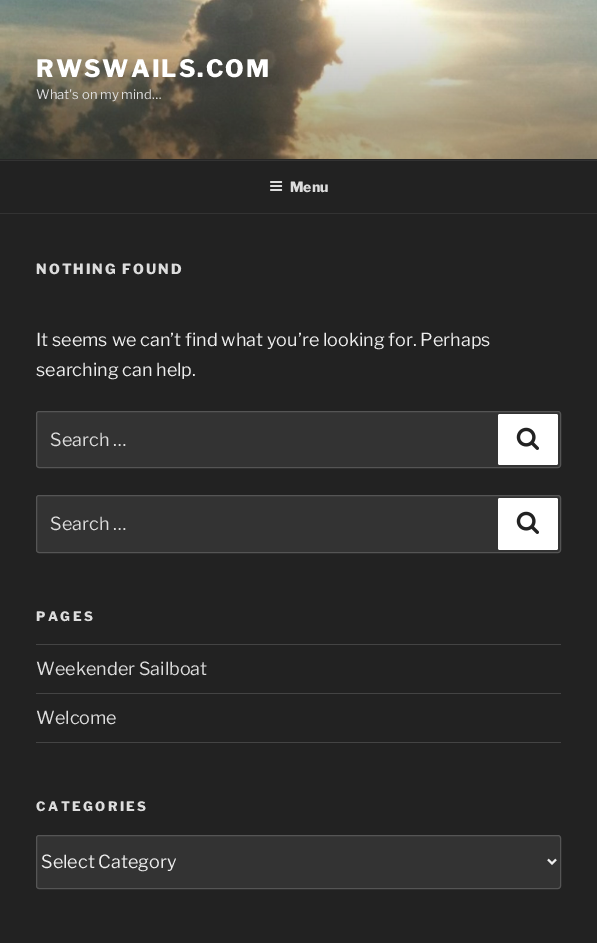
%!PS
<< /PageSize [597 943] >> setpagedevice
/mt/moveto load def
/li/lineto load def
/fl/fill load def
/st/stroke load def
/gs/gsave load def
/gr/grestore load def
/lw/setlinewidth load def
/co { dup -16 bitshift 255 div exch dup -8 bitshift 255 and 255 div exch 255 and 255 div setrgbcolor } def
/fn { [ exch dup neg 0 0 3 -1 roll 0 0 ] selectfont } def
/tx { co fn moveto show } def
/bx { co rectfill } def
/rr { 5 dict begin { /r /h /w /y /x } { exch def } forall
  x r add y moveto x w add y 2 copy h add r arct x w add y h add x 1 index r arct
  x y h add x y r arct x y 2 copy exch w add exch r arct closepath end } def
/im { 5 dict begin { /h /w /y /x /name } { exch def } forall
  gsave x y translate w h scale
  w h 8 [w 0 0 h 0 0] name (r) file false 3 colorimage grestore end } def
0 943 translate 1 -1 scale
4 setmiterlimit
0 0 597 943 16#222222 bx
0 159 597 1 16#262626 bx
(media/1.raw) 0 0 597 159 im
0 160 597 1 16#333333 bx
0 213 597 1 16#333333 bx
(media/2.raw) 270 181 13 10 im
36.5 411.5 524 56 2.5 rr gs fl gr
16#555555 co
st
16#FFFFFF co
498 414 60 51 2 rr fl
(media/3.raw) 516 427 23 23 im
16#333333 co
36.5 495.5 524 57 2.5 rr gs fl gr
16#555555 co
st
16#FFFFFF co
498 498 60 52 2 rr fl
(media/3.raw) 516 511 23 23 im
36 644 525 1 16#444444 bx
36 693 525 1 16#444444 bx
36 742 525 1 16#444444 bx
16#333333 co
36.5 835.5 524 53 2.5 rr gs fl gr
16#555555 co
st
16#EEEEEE co
2 lw
548 859.5 mt 552 863.5 li 556 859.5 li st
/LibreFranklin-ExtraBold 24 fn
16#FFFFFF co
36 77 mt 2 0 (RWSWAILS.COM) ashow
(What's on my mind…) 36 99 /LibreFranklin-Regular 13 16#DDDDDD tx
(Menu) 290 192 /LibreFranklin-ExtraBold 14 16#DDDDDD tx
36 274 mt 2 0 (NOTHING FOUND) ashow
(It seems we can’t find what you’re looking for. Perhaps) 36 346 /LibreFranklin-Regular 18 16#EEEEEE tx
(searching can help.) 36 376 /LibreFranklin-Regular 18 16#EEEEEE tx
(Search …) 50 446 /LibreFranklin-Regular 18 16#DDDDDD tx
(Search …) 50 530 /LibreFranklin-Regular 18 16#DDDDDD tx
/LibreFranklin-ExtraBold 13 fn
36 621 mt 2.4 0 (PAGES) ashow
(Weekender Sailboat) 36 675 /LibreFranklin-Regular 18 16#DDDDDD tx
(Welcome) 36 724 /LibreFranklin-Regular 18 16#DDDDDD tx
/LibreFranklin-ExtraBold 13 fn
36 811 mt 2.4 0 (CATEGORIES) ashow
(Select Category) 41 868 /LibreFranklin-Regular 18 16#EEEEEE tx
showpage
